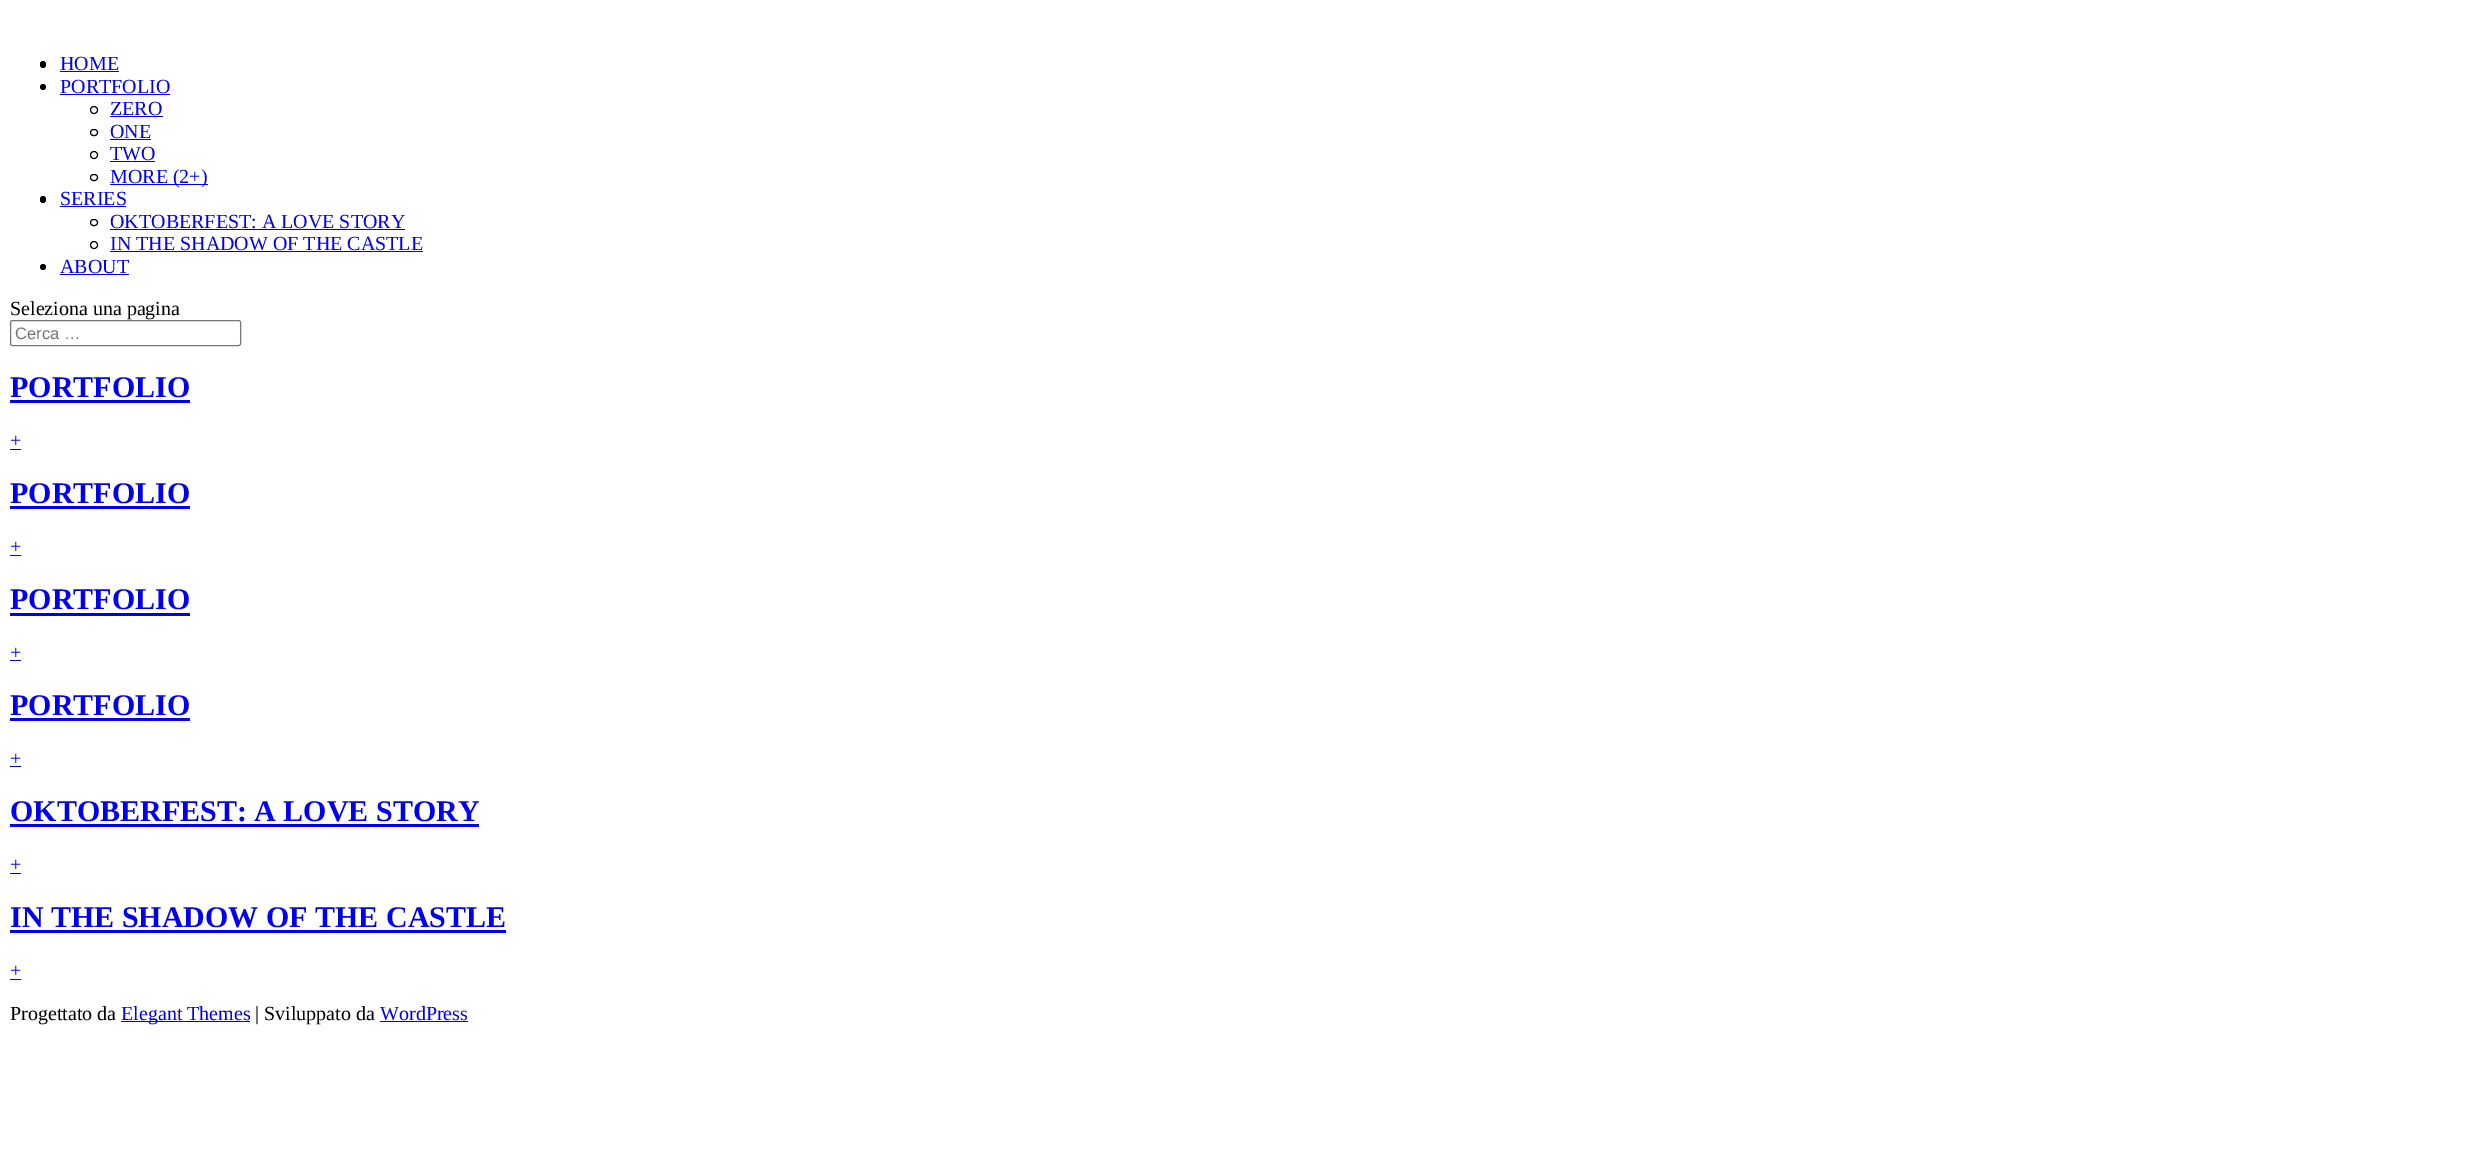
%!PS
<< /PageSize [2489 1157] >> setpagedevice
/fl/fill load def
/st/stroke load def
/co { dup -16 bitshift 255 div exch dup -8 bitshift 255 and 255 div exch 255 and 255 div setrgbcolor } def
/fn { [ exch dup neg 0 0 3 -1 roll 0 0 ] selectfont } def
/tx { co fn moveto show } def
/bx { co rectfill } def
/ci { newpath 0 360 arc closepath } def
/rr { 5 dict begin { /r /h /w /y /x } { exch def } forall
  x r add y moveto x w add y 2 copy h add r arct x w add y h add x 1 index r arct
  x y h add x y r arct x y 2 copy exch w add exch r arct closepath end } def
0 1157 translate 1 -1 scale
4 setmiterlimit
0 0 2489 1157 16#FFFFFF bx
16#000000 co
40 61 6 7 3 rr fl
60 71 59 1 16#0000EE bx
16#000000 co
43 87 3 ci fl
60 94 110 1 16#0000EE bx
16#000000 co
94 110 3.5 ci st
110 116 53 1 16#0000EE bx
16#000000 co
90.5 129.5 7 6 3 rr st
110 139 41 1 16#0000EE bx
16#000000 co
94 155 3.5 ci st
110 161 45 1 16#0000EE bx
16#000000 co
90.5 174.5 7 6 3 rr st
110 184 98 1 16#0000EE bx
16#000000 co
40 196 6 7 3 rr fl
60 206 66 1 16#0000EE bx
16#000000 co
90.5 219.5 7 6 3 rr st
110 229 295 1 16#0000EE bx
16#000000 co
94 245 3.5 ci st
110 251 313 1 16#0000EE bx
16#000000 co
43 267 3 ci fl
60 274 69 1 16#0000EE bx
16#767676 co
10.5 320.5 230 25 2 rr st
10 400 180 3 16#0000EE bx
10 449 11 1 16#0000EE bx
10 506 180 3 16#0000EE bx
10 555 11 1 16#0000EE bx
10 613 180 3 16#0000EE bx
10 660 11 1 16#0000EE bx
10 718 180 3 16#0000EE bx
10 766 11 1 16#0000EE bx
10 824 469 3 16#0000EE bx
10 873 11 1 16#0000EE bx
10 930 496 3 16#0000EE bx
10 979 11 1 16#0000EE bx
121 1021 129 1 16#0000EE bx
380 1021 88 1 16#0000EE bx
(HOME) 60 70 /LiberationSerif-Regular 20 16#0000EE tx
(PORTFOLIO) 60 93 /LiberationSerif-Regular 20 16#0000EE tx
(ZERO) 110 115 /LiberationSerif-Regular 20 16#0000EE tx
(ONE) 110 138 /LiberationSerif-Regular 20 16#0000EE tx
(TWO) 110 160 /LiberationSerif-Regular 20 16#0000EE tx
(MORE \(2+\)) 110 183 /LiberationSerif-Regular 20 16#0000EE tx
(SERIES) 60 205 /LiberationSerif-Regular 20 16#0000EE tx
(OKTOBERFEST: A LOVE STORY) 110 228 /LiberationSerif-Regular 20 16#0000EE tx
(IN THE SHADOW OF THE CASTLE) 110 250 /LiberationSerif-Regular 20 16#0000EE tx
(ABOUT) 60 273 /LiberationSerif-Regular 20 16#0000EE tx
(Seleziona una pagina) 10 315 /LiberationSerif-Regular 20 16#000000 tx
(Cerca …) 15 339 /LiberationSans-Regular 16.5 16#757575 tx
(PORTFOLIO) 10 397 /LiberationSerif-Bold 30 16#0000EE tx
(+) 10 447 /LiberationSerif-Regular 20 16#0000EE tx
(PORTFOLIO) 10 503 /LiberationSerif-Bold 30 16#0000EE tx
(+) 10 553 /LiberationSerif-Regular 20 16#0000EE tx
(PORTFOLIO) 10 609 /LiberationSerif-Bold 30 16#0000EE tx
(+) 10 659 /LiberationSerif-Regular 20 16#0000EE tx
(PORTFOLIO) 10 715 /LiberationSerif-Bold 30 16#0000EE tx
(+) 10 765 /LiberationSerif-Regular 20 16#0000EE tx
(OKTOBERFEST: A LOVE STORY) 10 821 /LiberationSerif-Bold 30 16#0000EE tx
(+) 10 871 /LiberationSerif-Regular 20 16#0000EE tx
(IN THE SHADOW OF THE CASTLE) 10 927 /LiberationSerif-Bold 30 16#0000EE tx
(+) 10 977 /LiberationSerif-Regular 20 16#0000EE tx
(Progettato da) 10 1020 /LiberationSerif-Regular 20 16#000000 tx
(Elegant Themes) 121 1020 /LiberationSerif-Regular 20 16#0000EE tx
(| Sviluppato da) 255 1020 /LiberationSerif-Regular 20 16#000000 tx
(WordPress) 380 1020 /LiberationSerif-Regular 20 16#0000EE tx
showpage
